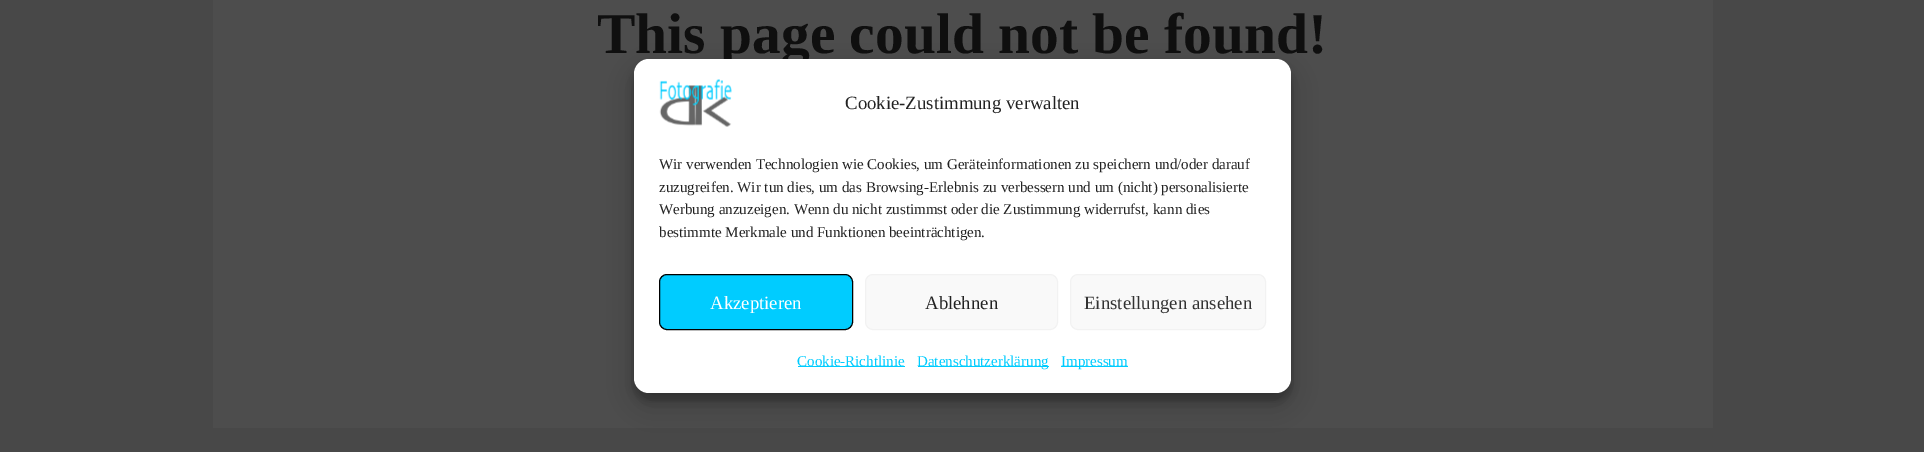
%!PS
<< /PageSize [1924 452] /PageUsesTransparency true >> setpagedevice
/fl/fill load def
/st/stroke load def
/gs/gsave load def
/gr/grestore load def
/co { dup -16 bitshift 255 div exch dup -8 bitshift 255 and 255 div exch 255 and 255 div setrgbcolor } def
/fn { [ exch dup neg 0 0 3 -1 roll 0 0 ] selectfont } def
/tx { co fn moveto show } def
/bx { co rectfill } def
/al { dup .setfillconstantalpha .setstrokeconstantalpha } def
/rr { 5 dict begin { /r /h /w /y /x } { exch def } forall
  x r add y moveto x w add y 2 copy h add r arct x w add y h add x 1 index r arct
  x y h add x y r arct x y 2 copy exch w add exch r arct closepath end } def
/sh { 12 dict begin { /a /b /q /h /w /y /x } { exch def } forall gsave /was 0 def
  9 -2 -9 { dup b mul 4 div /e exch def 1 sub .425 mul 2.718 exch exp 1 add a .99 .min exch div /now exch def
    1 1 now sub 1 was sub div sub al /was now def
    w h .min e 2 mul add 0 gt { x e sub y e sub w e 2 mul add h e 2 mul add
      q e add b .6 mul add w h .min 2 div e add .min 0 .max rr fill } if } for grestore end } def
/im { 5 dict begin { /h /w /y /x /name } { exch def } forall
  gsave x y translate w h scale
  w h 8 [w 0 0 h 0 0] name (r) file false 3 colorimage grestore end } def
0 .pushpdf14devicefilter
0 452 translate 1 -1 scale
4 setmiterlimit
0 0 1924 452 16#484848 bx
213 0 1500 428 16#4D4D4D bx
16#000000 co
634 66 657 334 15 4 .23 sh
634 71 657 334 15 12.5 .19 sh
(This page could not be found!) 597 53 /LiberationSerif-Bold 57.5 16#0F0F0F tx
16#FFFFFF co
634 59 657 334 15 rr fl
(media/1.raw) 659 79 73 48 im
(Cookie-Zustimmung verwalten) 845 109 /LiberationSerif-Regular 18.75 16#222222 tx
(Wir verwenden Technologien wie Cookies, um Geräteinformationen zu speichern und/oder darauf) 659 169 /LiberationSerif-Regular 15 16#222222 tx
(zuzugreifen. Wir tun dies, um das Browsing-Erlebnis zu verbessern und um \(nicht\) personalisierte) 659 192 /LiberationSerif-Regular 15 16#222222 tx
(Werbung anzuzeigen. Wenn du nicht zustimmst oder die Zustimmung widerrufst, kann dies) 659 214 /LiberationSerif-Regular 15 16#222222 tx
(bestimmte Merkmale und Funktionen beeinträchtigen.) 659 237 /LiberationSerif-Regular 15 16#222222 tx
16#00CCFF co
659.5 274.5 193 55 7.5 rr gs fl gr
16#000000 co
st
(Akzeptieren) 710 309 /LiberationSerif-Regular 18.75 16#FFFFFF tx
16#F9F9F9 co
865.5 274.5 192 55 7.5 rr gs fl gr
16#F2F2F2 co
st
(Ablehnen) 925 309 /LiberationSerif-Regular 18.75 16#222222 tx
16#F9F9F9 co
1070.5 274.5 195 55 7.5 rr gs fl gr
16#F2F2F2 co
st
(Einstellungen ansehen) 1084 309 /LiberationSerif-Regular 18.75 16#333333 tx
798 366 107 1 16#00CCFF bx
(Cookie-Richtlinie) 797 366 /LiberationSerif-Regular 15 16#00CCFF tx
918 366 131 1 16#00CCFF bx
(Datenschutzerklärung) 917 366 /LiberationSerif-Regular 15 16#00CCFF tx
1061 366 67 1 16#00CCFF bx
(Impressum) 1061 366 /LiberationSerif-Regular 15 16#00CCFF tx
.poppdf14devicefilter showpage
